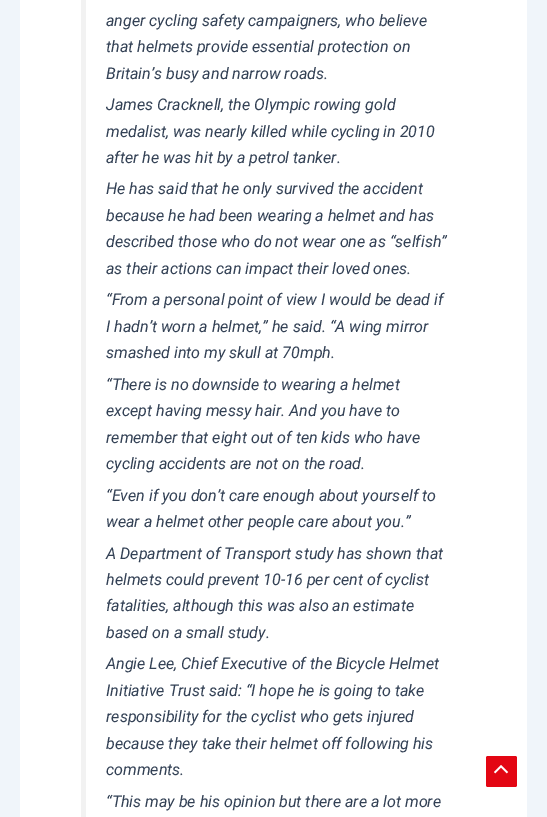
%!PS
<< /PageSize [547 817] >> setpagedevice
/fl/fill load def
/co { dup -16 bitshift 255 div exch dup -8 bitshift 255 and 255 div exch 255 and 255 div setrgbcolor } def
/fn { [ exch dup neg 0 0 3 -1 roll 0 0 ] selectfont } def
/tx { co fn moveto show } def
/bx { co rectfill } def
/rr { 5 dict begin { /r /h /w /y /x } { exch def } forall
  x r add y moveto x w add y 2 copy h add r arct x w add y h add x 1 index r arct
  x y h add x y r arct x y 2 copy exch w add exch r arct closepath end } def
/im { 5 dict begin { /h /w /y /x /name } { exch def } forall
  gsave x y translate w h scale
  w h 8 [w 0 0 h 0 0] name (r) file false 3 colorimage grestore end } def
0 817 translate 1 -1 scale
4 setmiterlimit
0 0 547 817 16#F0F5FA bx
20 0 507 817 16#FFFFFF bx
81 0 5 817 16#F2F2F2 bx
16#E30613 co
486 756 31 31 2 rr fl
(media/1.raw) 494 765 15 9 im
(anger cycling safety campaigners, who believe) 106 26 /Roboto-Italic 16.05 16#334155 tx
(that helmets provide essential protection on) 106 52 /Roboto-Italic 16.05 16#334155 tx
(Britain’s busy and narrow roads.) 106 79 /Roboto-Italic 16.05 16#334155 tx
(James Cracknell, the Olympic rowing gold) 106 110 /Roboto-Italic 16.05 16#334155 tx
(medalist, was nearly killed while cycling in 2010) 106 137 /Roboto-Italic 16.05 16#334155 tx
(after he was hit by a petrol tanker.) 106 163 /Roboto-Italic 16.05 16#334155 tx
(He has said that he only survived the accident) 106 194 /Roboto-Italic 16.05 16#334155 tx
(because he had been wearing a helmet and has) 106 221 /Roboto-Italic 16.05 16#334155 tx
(described those who do not wear one as “selfish”) 106 247 /Roboto-Italic 16.05 16#334155 tx
(as their actions can impact their loved ones.) 106 274 /Roboto-Italic 16.05 16#334155 tx
(“From a personal point of view I would be dead if) 106 305 /Roboto-Italic 16.05 16#334155 tx
(I hadn’t worn a helmet,” he said. “A wing mirror) 106 332 /Roboto-Italic 16.05 16#334155 tx
(smashed into my skull at 70mph.) 106 358 /Roboto-Italic 16.05 16#334155 tx
(“There is no downside to wearing a helmet) 106 390 /Roboto-Italic 16.05 16#334155 tx
(except having messy hair. And you have to) 106 416 /Roboto-Italic 16.05 16#334155 tx
(remember that eight out of ten kids who have) 106 443 /Roboto-Italic 16.05 16#334155 tx
(cycling accidents are not on the road.) 106 469 /Roboto-Italic 16.05 16#334155 tx
(“Even if you don’t care enough about yourself to) 106 501 /Roboto-Italic 16.05 16#334155 tx
(wear a helmet other people care about you.”) 106 527 /Roboto-Italic 16.05 16#334155 tx
(A Department of Transport study has shown that) 106 559 /Roboto-Italic 16.05 16#334155 tx
(helmets could prevent 10-16 per cent of cyclist) 106 585 /Roboto-Italic 16.05 16#334155 tx
(fatalities, although this was also an estimate) 106 611 /Roboto-Italic 16.05 16#334155 tx
(based on a small study.) 106 638 /Roboto-Italic 16.05 16#334155 tx
(Angie Lee, Chief Executive of the Bicycle Helmet) 106 669 /Roboto-Italic 16.05 16#334155 tx
(Initiative Trust said: “I hope he is going to take) 106 696 /Roboto-Italic 16.05 16#334155 tx
(responsibility for the cyclist who gets injured) 106 722 /Roboto-Italic 16.05 16#334155 tx
(because they take their helmet off following his) 106 749 /Roboto-Italic 16.05 16#334155 tx
(comments.) 106 775 /Roboto-Italic 16.05 16#334155 tx
(“This may be his opinion but there are a lot more) 106 807 /Roboto-Italic 16.05 16#334155 tx
showpage
